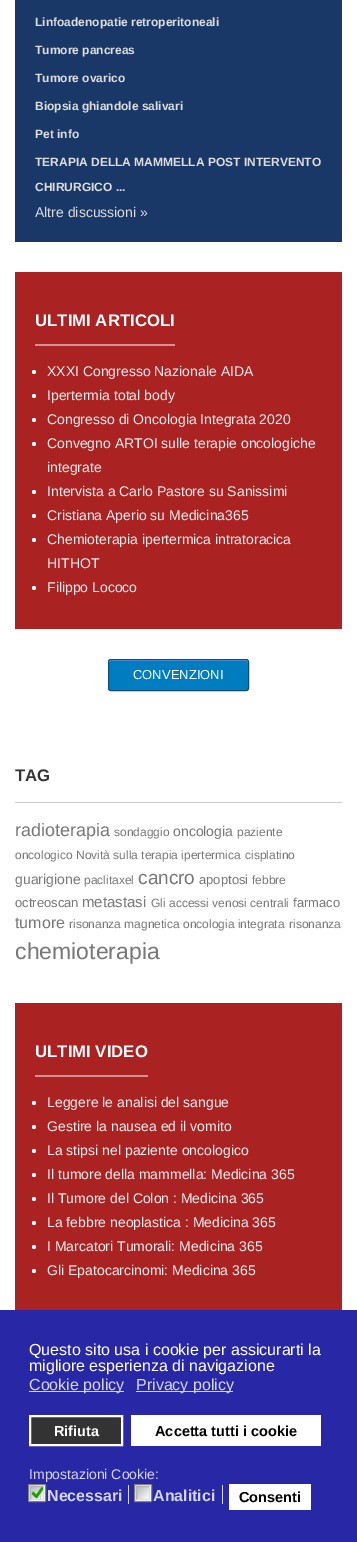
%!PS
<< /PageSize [357 1542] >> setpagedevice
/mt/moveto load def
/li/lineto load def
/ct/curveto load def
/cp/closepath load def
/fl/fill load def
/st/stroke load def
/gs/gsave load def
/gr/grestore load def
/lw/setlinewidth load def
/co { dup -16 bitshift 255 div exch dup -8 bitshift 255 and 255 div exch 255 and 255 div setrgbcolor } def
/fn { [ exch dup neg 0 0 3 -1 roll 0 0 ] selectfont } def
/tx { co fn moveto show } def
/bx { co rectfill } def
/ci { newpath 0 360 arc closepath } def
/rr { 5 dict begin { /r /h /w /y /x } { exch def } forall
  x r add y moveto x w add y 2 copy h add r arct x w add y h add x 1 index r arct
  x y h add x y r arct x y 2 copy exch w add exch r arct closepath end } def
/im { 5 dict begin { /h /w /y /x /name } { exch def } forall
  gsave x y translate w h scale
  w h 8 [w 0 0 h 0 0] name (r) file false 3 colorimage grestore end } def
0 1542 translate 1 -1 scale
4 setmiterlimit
0 0 357 1542 16#FFFFFF bx
15 0 327 242 16#1A3867 bx
15 272 327 357 16#AA2222 bx
35 344 140 2 16#D59191 bx
16#FFFFFF co
34 372 2 ci fl
34 396 2 ci fl
34 420 2 ci fl
34 444 2 ci fl
34 492 2 ci fl
34 516 2 ci fl
34 540 2 ci fl
34 588 2 ci fl
16#007DC1 co
108 659 141 32 3 rr fl
16#54A3F7 co
111 661 mt 246 661 li 247 661 248 662 248 663 ct 248 662 248 660 246 660 ct 111 660 li 109 660 109 662 109 663 ct 109 662 110 661 111 661 ct cp fl
16#124D77 co
108.5 659.5 140 31 2.5 rr st
15 802 327 1 16#CCCCCC bx
15 1003 327 307 16#AA2222 bx
35 1075 113 2 16#D59191 bx
16#FFFFFF co
34 1103 2 ci fl
34 1127 2 ci fl
34 1151 2 ci fl
34 1175 2 ci fl
34 1199 2 ci fl
34 1223 2 ci fl
34 1247 2 ci fl
34 1271 2 ci fl
0 1310 357 232 16#2828A6 bx
29 1391 95 1 16#D4D4ED bx
136 1391 97 1 16#D4D4ED bx
16#333333 co
30 1416 mt 122 1416 li 122 1445 li 30 1445 li cp gs fl gr
16#FFFFFF co
2 lw
st
131 1415 190 31 16#FFFFFF bx
28.5 1484.5 17 17 .5 rr gs fl gr
16#808080 co
1 lw
st
(media/1.raw) 30 1486 14 14 im
16#DCDDDE co
43.5 1486.5 mt 43.5 1493 li 43.5 1501.5 45.5 1499.5 37 1499.5 ct 30.5 1499.5 li st
16#B3B3B3 co
30.5 1499.5 mt 30.5 1493 li 30.5 1484.5 28.5 1486.5 37 1486.5 ct 43.5 1486.5 li st
128 1485 1 19 16#D4D4ED bx
16#FFFFFF co
134.5 1484.5 17 17 .5 rr gs fl gr
16#808080 co
st
gs 137 1487 mt 149 1487 li 149 1499 li 137 1499 li cp clip newpath
<< /ShadingType 2 /ColorSpace /DeviceRGB /Coords [137 1487 149 1499] /Extend [true true] /Function << /FunctionType 2 /Domain [0 1] /C0 [.694 .714 .745] /C1 [1 1 1] /N 1 >> >> shfill gr
16#DCDDDE co
149.5 1486.5 mt 149.5 1493 li 149.5 1501.5 151.5 1499.5 143 1499.5 ct 136.5 1499.5 li st
16#B3B3B3 co
136.5 1499.5 mt 136.5 1493 li 136.5 1484.5 134.5 1486.5 143 1486.5 ct 149.5 1486.5 li st
222 1485 1 19 16#D4D4ED bx
229 1484 82 26 16#FFFFFF bx
(Linfoadenopatie retroperitoneali) 35 26 /LiberationSans-Bold 12 16#DDDDDD tx
(Tumore pancreas) 35 54 /LiberationSans-Bold 12 16#DDDDDD tx
(Tumore ovarico) 35 82 /LiberationSans-Bold 12 16#DDDDDD tx
(Biopsia ghiandole salivari) 35 110 /LiberationSans-Bold 12 16#DDDDDD tx
(Pet info) 35 138 /LiberationSans-Bold 12 16#DDDDDD tx
(TERAPIA DELLA MAMMELLA POST INTERVENTO) 35 166 /LiberationSans-Bold 12 16#DDDDDD tx
(CHIRURGICO ...) 35 191 /LiberationSans-Bold 12 16#DDDDDD tx
(Altre discussioni ») 35 217 /LiberationSans-Regular 14 16#DDDDDD tx
(ULTIMI ARTICOLI) 35 326 /LiberationSans-Bold 16.75 16#FFFFFF tx
(XXXI Congresso Nazionale AIDA) 47 376 /LiberationSans-Regular 14 16#EEEEEE tx
(Ipertermia total body) 47 400 /LiberationSans-Regular 14 16#EEEEEE tx
(Congresso di Oncologia Integrata 2020) 47 424 /LiberationSans-Regular 14 16#EEEEEE tx
(Convegno ARTOI sulle terapie oncologiche) 47 448 /LiberationSans-Regular 14 16#EEEEEE tx
(integrate) 47 472 /LiberationSans-Regular 14 16#EEEEEE tx
(Intervista a Carlo Pastore su Sanissimi) 47 496 /LiberationSans-Regular 14 16#EEEEEE tx
(Cristiana Aperio su Medicina365) 47 520 /LiberationSans-Regular 14 16#EEEEEE tx
(Chemioterapia ipertermica intratoracica) 47 544 /LiberationSans-Regular 14 16#EEEEEE tx
(HITHOT) 47 568 /LiberationSans-Regular 14 16#EEEEEE tx
(Filippo Lococo) 47 592 /LiberationSans-Regular 14 16#EEEEEE tx
(CONVENZIONI) 133 679 /LiberationSans-Regular 13 16#FFFFFF tx
(TAG) 15 781 /LiberationSans-Bold 16.75 16#333333 tx
(radioterapia) 15 836 /LiberationSans-Regular 18 16#777777 tx
(sondaggio) 114 836 /LiberationSans-Regular 12 16#777777 tx
(oncologia) 173 836 /LiberationSans-Regular 14 16#777777 tx
(paziente) 237 836 /LiberationSans-Regular 12 16#777777 tx
(oncologico) 15 859 /LiberationSans-Regular 12 16#777777 tx
(Novità sulla terapia ipertermica) 76 859 /LiberationSans-Regular 12 16#777777 tx
(cisplatino) 245 859 /LiberationSans-Regular 12 16#777777 tx
(guarigione) 15 884 /LiberationSans-Regular 14 16#777777 tx
(paclitaxel) 84 884 /LiberationSans-Regular 12 16#777777 tx
(cancro) 138 884 /LiberationSans-Regular 19 16#777777 tx
(apoptosi) 199 884 /LiberationSans-Regular 13 16#777777 tx
(febbre) 252 884 /LiberationSans-Regular 12 16#777777 tx
(octreoscan) 15 907 /LiberationSans-Regular 13 16#777777 tx
(metastasi) 82 907 /LiberationSans-Regular 15 16#777777 tx
(Gli accessi venosi centrali) 151 907 /LiberationSans-Regular 12 16#777777 tx
(farmaco) 293 907 /LiberationSans-Regular 13 16#777777 tx
(tumore) 15 928 /LiberationSans-Regular 16 16#777777 tx
(risonanza magnetica) 69 928 /LiberationSans-Regular 12 16#777777 tx
(oncologia integrata) 183 928 /LiberationSans-Regular 12 16#777777 tx
(risonanza) 289 928 /LiberationSans-Regular 12 16#777777 tx
(chemioterapia) 15 959 /LiberationSans-Regular 23 16#777777 tx
(ULTIMI VIDEO) 35 1057 /LiberationSans-Bold 16.75 16#FFFFFF tx
(Leggere le analisi del sangue) 47 1107 /LiberationSans-Regular 14 16#EEEEEE tx
(Gestire la nausea ed il vomito) 47 1131 /LiberationSans-Regular 14 16#EEEEEE tx
(La stipsi nel paziente oncologico) 47 1155 /LiberationSans-Regular 14 16#EEEEEE tx
(Il tumore della mammella: Medicina 365) 47 1179 /LiberationSans-Regular 14 16#EEEEEE tx
(Il Tumore del Colon : Medicina 365) 47 1203 /LiberationSans-Regular 14 16#EEEEEE tx
(La febbre neoplastica : Medicina 365) 47 1227 /LiberationSans-Regular 14 16#EEEEEE tx
(I Marcatori Tumorali: Medicina 365) 47 1251 /LiberationSans-Regular 14 16#EEEEEE tx
(Gli Epatocarcinomi: Medicina 365) 47 1275 /LiberationSans-Regular 14 16#EEEEEE tx
(Questo sito usa i cookie per assicurarti la) 29 1355 /LiberationSans-Regular 16 16#FFFFFF tx
(migliore esperienza di navigazione) 29 1371 /LiberationSans-Regular 16 16#FFFFFF tx
(Cookie policy) 29 1390 /LiberationSans-Regular 16 16#D4D4ED tx
(Privacy policy) 136 1390 /LiberationSans-Regular 16 16#D4D4ED tx
(Rifiuta) 54 1436 /LiberationSans-Bold 14.5 16#FFFFFF tx
(Accetta tutti i cookie) 155 1436 /LiberationSans-Bold 14.5 16#000000 tx
(Impostazioni Cookie:) 29 1479 /LiberationSans-Regular 14 16#D4D4ED tx
(Necessari) 47 1501 /LiberationSans-Bold 16 16#D4D4ED tx
(Analitici) 153 1501 /LiberationSans-Bold 16 16#D4D4ED tx
(Consenti) 239 1502 /LiberationSans-Bold 14.5 16#000000 tx
showpage
